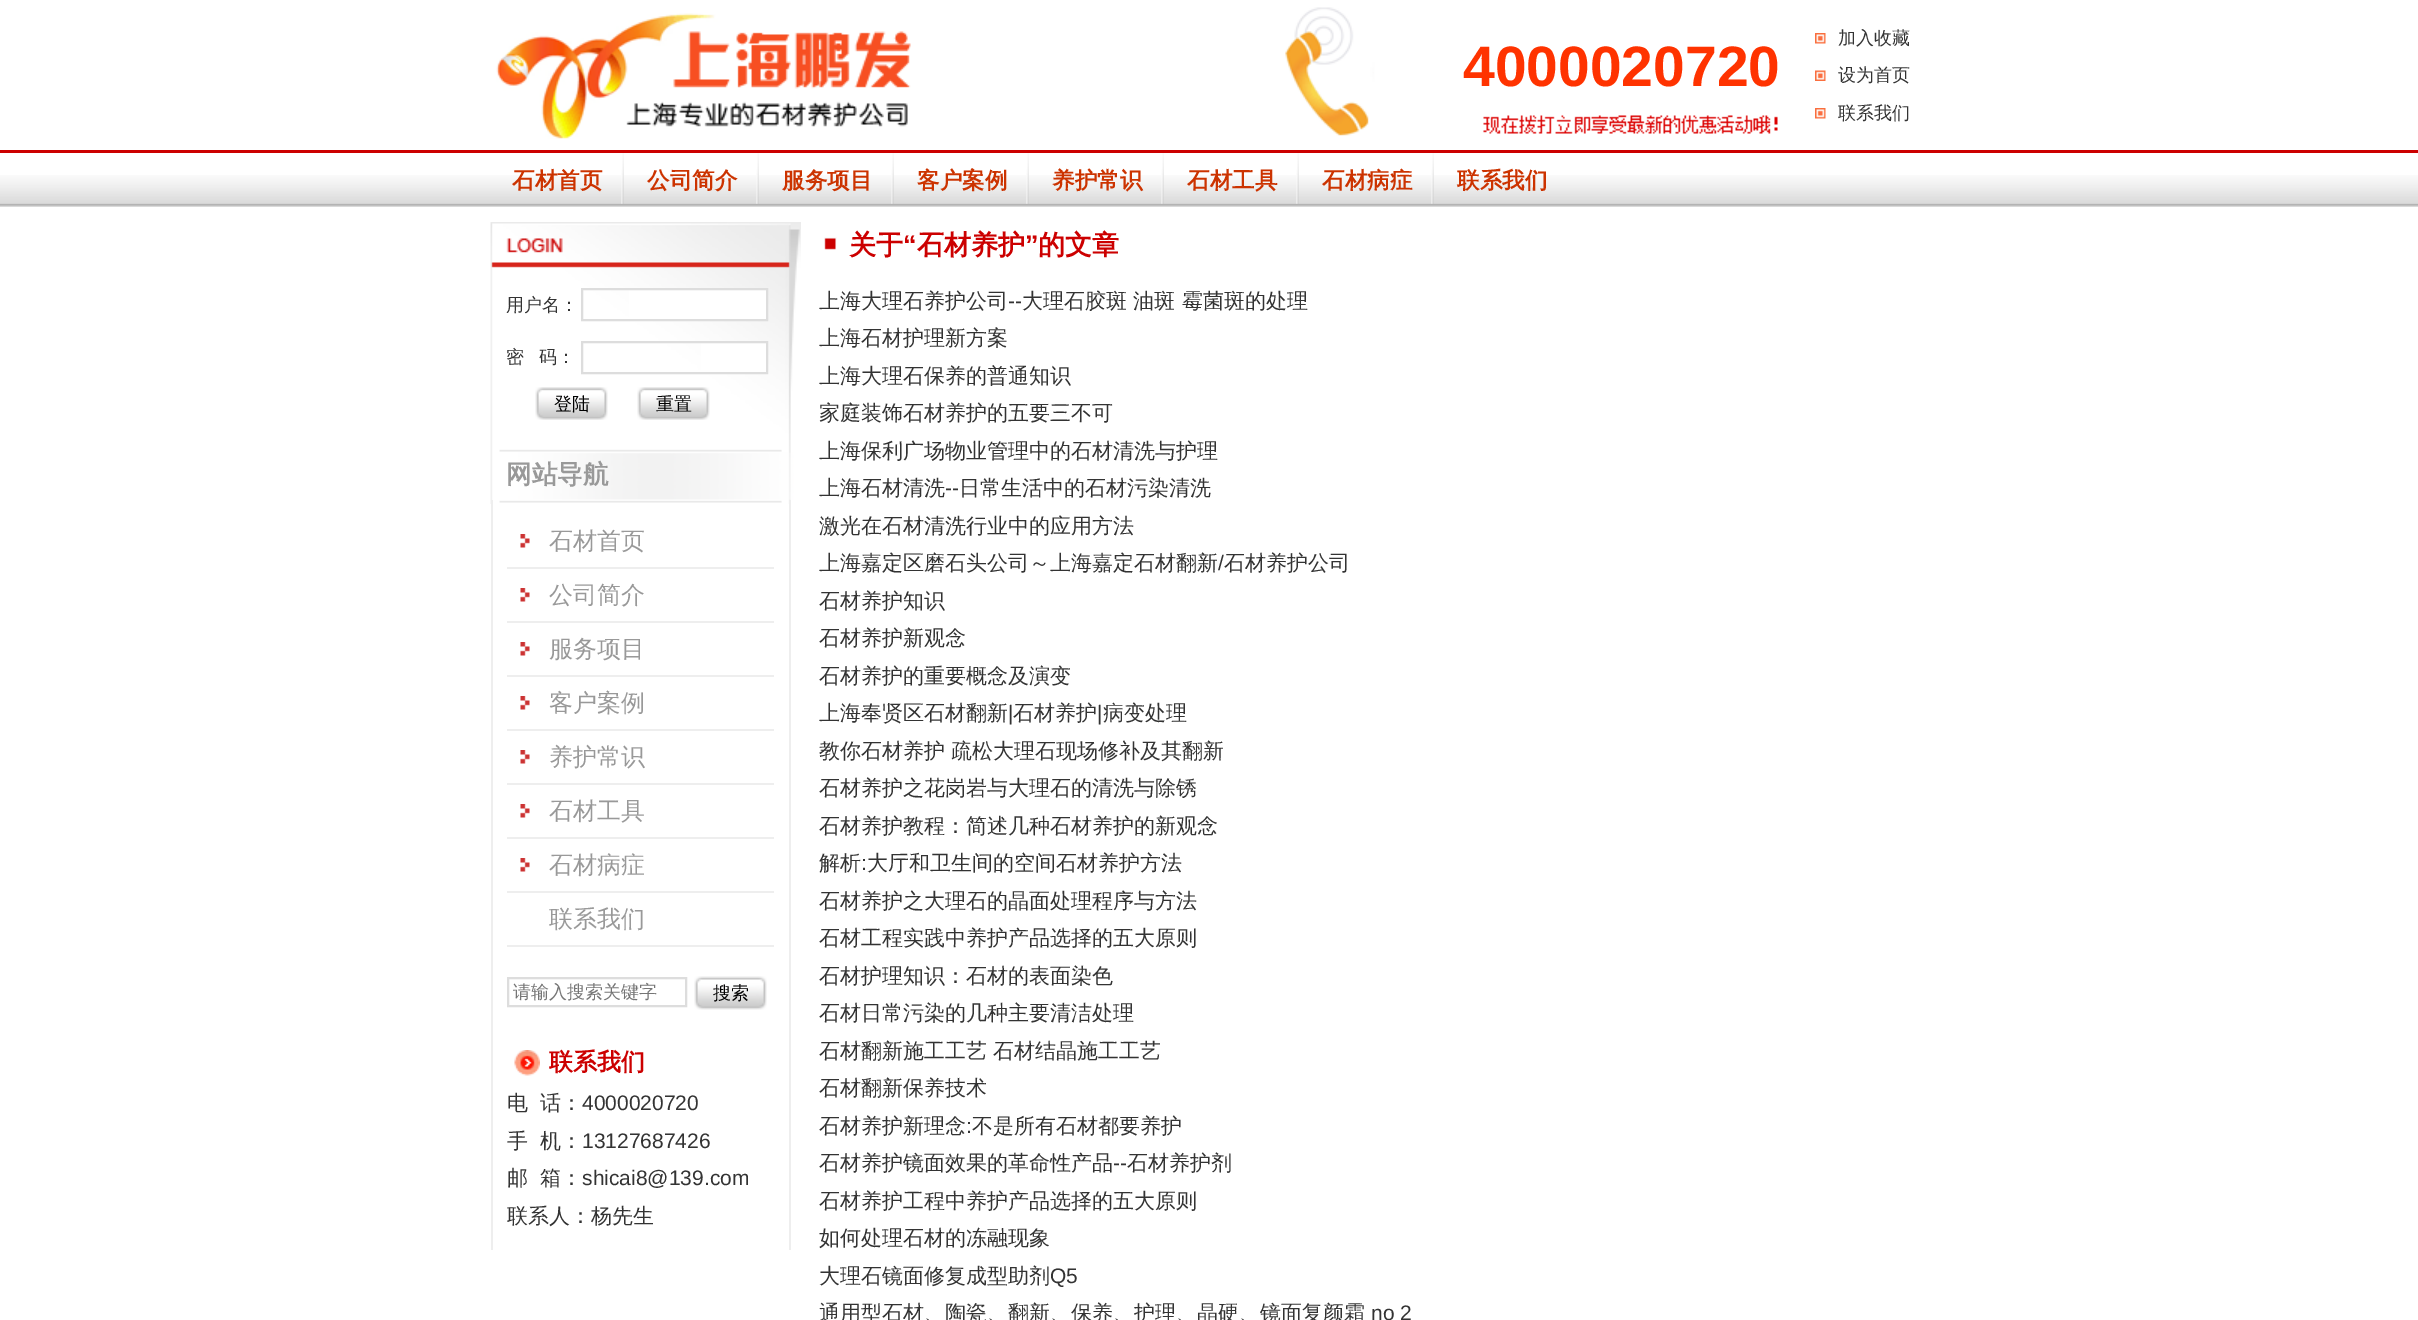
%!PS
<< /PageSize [2418 1320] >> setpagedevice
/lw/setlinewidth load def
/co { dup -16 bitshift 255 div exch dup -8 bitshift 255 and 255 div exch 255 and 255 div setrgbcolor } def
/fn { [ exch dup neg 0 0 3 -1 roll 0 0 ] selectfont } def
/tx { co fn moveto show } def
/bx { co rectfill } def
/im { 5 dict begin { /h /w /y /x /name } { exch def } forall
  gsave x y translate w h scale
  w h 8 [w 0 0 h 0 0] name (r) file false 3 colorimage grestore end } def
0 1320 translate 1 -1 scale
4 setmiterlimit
0 0 2418 1320 16#FFFFFF bx
(media/1.raw) 496 13 415 126 im
(media/2.raw) 1285 7 493 129 im
(media/3.raw) 1815 33 11 11 im
(media/4.raw) 1815 70 11 11 im
(media/3.raw) 1815 108 11 11 im
(media/5.raw) 0 175 2418 32 im
0 150 2418 3 16#CC0000 bx
(media/6.raw) 621 153 3 51 im
(media/7.raw) 756 153 3 51 im
(media/6.raw) 891 153 3 51 im
(media/7.raw) 1026 153 3 51 im
(media/7.raw) 1161 153 3 51 im
(media/6.raw) 1296 153 3 51 im
(media/6.raw) 1431 153 3 51 im
(media/8.raw) 490 222 311 282 im
629 290 137 29 16#FFFFFF bx
16#DDDDDD co
2 lw
582 289 185 31 rectstroke
701 343 65 29 16#FFFFFF bx
16#DDDDDD co
582 342 185 31 rectstroke
(media/9.raw) 535 387 73 33 im
(media/10.raw) 637 387 73 33 im
789 500 2 750 16#EEEEEE bx
491 500 2 750 16#EEEEEE bx
(media/11.raw) 520 534 10 14 im
507 567 267 2 16#EEEEEE bx
(media/11.raw) 520 588 10 14 im
507 621 267 2 16#EEEEEE bx
(media/11.raw) 520 642 10 14 im
507 675 267 2 16#EEEEEE bx
(media/11.raw) 520 696 10 14 im
507 729 267 2 16#EEEEEE bx
(media/11.raw) 520 750 10 14 im
507 783 267 2 16#EEEEEE bx
(media/11.raw) 520 804 10 14 im
507 837 267 2 16#EEEEEE bx
(media/11.raw) 520 858 10 14 im
507 891 267 2 16#EEEEEE bx
507 945 267 2 16#EEEEEE bx
16#DDDDDD co
508 978 178 28 rectstroke
(media/12.raw) 694 976 73 34 im
(media/13.raw) 514 1050 26 26 im
(media/14.raw) 824 237 13 13 im
(4000020720) 1463 86 /LiberationSans-Bold 57 16#FF3300 tx
(加入收藏) 1838 44 /WenQuanYiZenHei-Medium 18 16#333333 tx
(设为首页) 1838 81 /WenQuanYiZenHei-Medium 18 16#333333 tx
(联系我们) 1838 119 /WenQuanYiZenHei-Medium 18 16#333333 tx
(石材首页) 512 188 /WenQuanYiZenHei-Bold 22.5 16#CC3300 tx
(公司简介) 647 188 /WenQuanYiZenHei-Bold 22.5 16#CC3300 tx
(服务项目) 782 188 /WenQuanYiZenHei-Bold 22.5 16#CC3300 tx
(客户案例) 917 188 /WenQuanYiZenHei-Bold 22.5 16#CC3300 tx
(养护常识) 1052 188 /WenQuanYiZenHei-Bold 22.5 16#CC3300 tx
(石材工具) 1187 188 /WenQuanYiZenHei-Bold 22.5 16#CC3300 tx
(石材病症) 1322 188 /WenQuanYiZenHei-Bold 22.5 16#CC3300 tx
(联系我们) 1457 188 /WenQuanYiZenHei-Bold 22.5 16#CC3300 tx
(用户名：) 506 311 /WenQuanYiZenHei-Medium 18 16#333333 tx
(密) 506 363 /WenQuanYiZenHei-Medium 18 16#333333 tx
(码：) 539 363 /WenQuanYiZenHei-Medium 18 16#333333 tx
(登陆) 554 410 /WenQuanYiZenHei-Medium 18 16#000000 tx
(重置) 656 410 /WenQuanYiZenHei-Medium 18 16#000000 tx
(网站导航) 506 483 /WenQuanYiZenHei-Bold 25.5 16#999999 tx
(石材首页) 549 549 /WenQuanYiZenHei-Medium 24 16#999999 tx
(公司简介) 549 603 /WenQuanYiZenHei-Medium 24 16#999999 tx
(服务项目) 549 657 /WenQuanYiZenHei-Medium 24 16#999999 tx
(客户案例) 549 711 /WenQuanYiZenHei-Medium 24 16#999999 tx
(养护常识) 549 765 /WenQuanYiZenHei-Medium 24 16#999999 tx
(石材工具) 549 819 /WenQuanYiZenHei-Medium 24 16#999999 tx
(石材病症) 549 873 /WenQuanYiZenHei-Medium 24 16#999999 tx
(联系我们) 549 927 /WenQuanYiZenHei-Medium 24 16#999999 tx
(请输入搜索关键字) 513 998 /WenQuanYiZenHei-Medium 18 16#757575 tx
(搜索) 713 999 /WenQuanYiZenHei-Medium 18 16#000000 tx
(联系我们) 549 1070 /WenQuanYiZenHei-Bold 24 16#CC0000 tx
(电) 507 1110 /WenQuanYiZenHei-Medium 21 16#333333 tx
(话：) 540 1110 /WenQuanYiZenHei-Medium 21 16#333333 tx
(4000020720) 582 1110 /LiberationSans-Regular 21 16#333333 tx
(手) 507 1148 /WenQuanYiZenHei-Medium 21 16#333333 tx
(机：) 540 1148 /WenQuanYiZenHei-Medium 21 16#333333 tx
(13127687426) 582 1148 /LiberationSans-Regular 21 16#333333 tx
(邮) 507 1185 /WenQuanYiZenHei-Medium 21 16#333333 tx
(箱：) 540 1185 /WenQuanYiZenHei-Medium 21 16#333333 tx
(shicai8@139.com) 582 1185 /LiberationSans-Regular 21 16#333333 tx
(联系人：杨先生) 507 1223 /WenQuanYiZenHei-Medium 21 16#333333 tx
(关于) 849 254 /WenQuanYiZenHei-Bold 27 16#CC0000 tx
(“) 903 254 /LiberationSans-Bold 27 16#CC0000 tx
(石材养护) 917 254 /WenQuanYiZenHei-Bold 27 16#CC0000 tx
(”) 1025 254 /LiberationSans-Bold 27 16#CC0000 tx
(的文章) 1038 254 /WenQuanYiZenHei-Bold 27 16#CC0000 tx
(上海大理石养护公司) 819 308 /WenQuanYiZenHei-Medium 21 16#333333 tx
(--) 1008 308 /LiberationSans-Regular 21 16#333333 tx
(大理石胶斑 油斑 霉菌斑的处理) 1022 308 /WenQuanYiZenHei-Medium 21 16#333333 tx
(上海石材护理新方案) 819 345 /WenQuanYiZenHei-Medium 21 16#333333 tx
(上海大理石保养的普通知识) 819 383 /WenQuanYiZenHei-Medium 21 16#333333 tx
(家庭装饰石材养护的五要三不可) 819 420 /WenQuanYiZenHei-Medium 21 16#333333 tx
(上海保利广场物业管理中的石材清洗与护理) 819 458 /WenQuanYiZenHei-Medium 21 16#333333 tx
(上海石材清洗) 819 495 /WenQuanYiZenHei-Medium 21 16#333333 tx
(--) 945 495 /LiberationSans-Regular 21 16#333333 tx
(日常生活中的石材污染清洗) 959 495 /WenQuanYiZenHei-Medium 21 16#333333 tx
(激光在石材清洗行业中的应用方法) 819 533 /WenQuanYiZenHei-Medium 21 16#333333 tx
(上海嘉定区磨石头公司～上海嘉定石材翻新) 819 570 /WenQuanYiZenHei-Medium 21 16#333333 tx
(/) 1218 570 /LiberationSans-Regular 21 16#333333 tx
(石材养护公司) 1224 570 /WenQuanYiZenHei-Medium 21 16#333333 tx
(石材养护知识) 819 608 /WenQuanYiZenHei-Medium 21 16#333333 tx
(石材养护新观念) 819 645 /WenQuanYiZenHei-Medium 21 16#333333 tx
(石材养护的重要概念及演变) 819 683 /WenQuanYiZenHei-Medium 21 16#333333 tx
(上海奉贤区石材翻新) 819 720 /WenQuanYiZenHei-Medium 21 16#333333 tx
(|) 1008 720 /LiberationSans-Regular 21 16#333333 tx
(石材养护) 1013 720 /WenQuanYiZenHei-Medium 21 16#333333 tx
(|) 1097 720 /LiberationSans-Regular 21 16#333333 tx
(病变处理) 1103 720 /WenQuanYiZenHei-Medium 21 16#333333 tx
(教你石材养护 疏松大理石现场修补及其翻新) 819 758 /WenQuanYiZenHei-Medium 21 16#333333 tx
(石材养护之花岗岩与大理石的清洗与除锈) 819 795 /WenQuanYiZenHei-Medium 21 16#333333 tx
(石材养护教程：简述几种石材养护的新观念) 819 833 /WenQuanYiZenHei-Medium 21 16#333333 tx
(解析) 819 870 /WenQuanYiZenHei-Medium 21 16#333333 tx
(:) 861 870 /LiberationSans-Regular 21 16#333333 tx
(大厅和卫生间的空间石材养护方法) 867 870 /WenQuanYiZenHei-Medium 21 16#333333 tx
(石材养护之大理石的晶面处理程序与方法) 819 908 /WenQuanYiZenHei-Medium 21 16#333333 tx
(石材工程实践中养护产品选择的五大原则) 819 945 /WenQuanYiZenHei-Medium 21 16#333333 tx
(石材护理知识：石材的表面染色) 819 983 /WenQuanYiZenHei-Medium 21 16#333333 tx
(石材日常污染的几种主要清洁处理) 819 1020 /WenQuanYiZenHei-Medium 21 16#333333 tx
(石材翻新施工工艺 石材结晶施工工艺) 819 1058 /WenQuanYiZenHei-Medium 21 16#333333 tx
(石材翻新保养技术) 819 1095 /WenQuanYiZenHei-Medium 21 16#333333 tx
(石材养护新理念) 819 1133 /WenQuanYiZenHei-Medium 21 16#333333 tx
(:) 966 1133 /LiberationSans-Regular 21 16#333333 tx
(不是所有石材都要养护) 972 1133 /WenQuanYiZenHei-Medium 21 16#333333 tx
(石材养护镜面效果的革命性产品) 819 1170 /WenQuanYiZenHei-Medium 21 16#333333 tx
(--) 1113 1170 /LiberationSans-Regular 21 16#333333 tx
(石材养护剂) 1127 1170 /WenQuanYiZenHei-Medium 21 16#333333 tx
(石材养护工程中养护产品选择的五大原则) 819 1208 /WenQuanYiZenHei-Medium 21 16#333333 tx
(如何处理石材的冻融现象) 819 1245 /WenQuanYiZenHei-Medium 21 16#333333 tx
(大理石镜面修复成型助剂) 819 1283 /WenQuanYiZenHei-Medium 21 16#333333 tx
(Q5) 1050 1283 /LiberationSans-Regular 21 16#333333 tx
(通用型石材、陶瓷、翻新、保养、护理、晶硬、镜面复颜霜) 819 1320 /WenQuanYiZenHei-Medium 21 16#333333 tx
(no 2) 1371 1320 /LiberationSans-Regular 21 16#333333 tx
showpage
